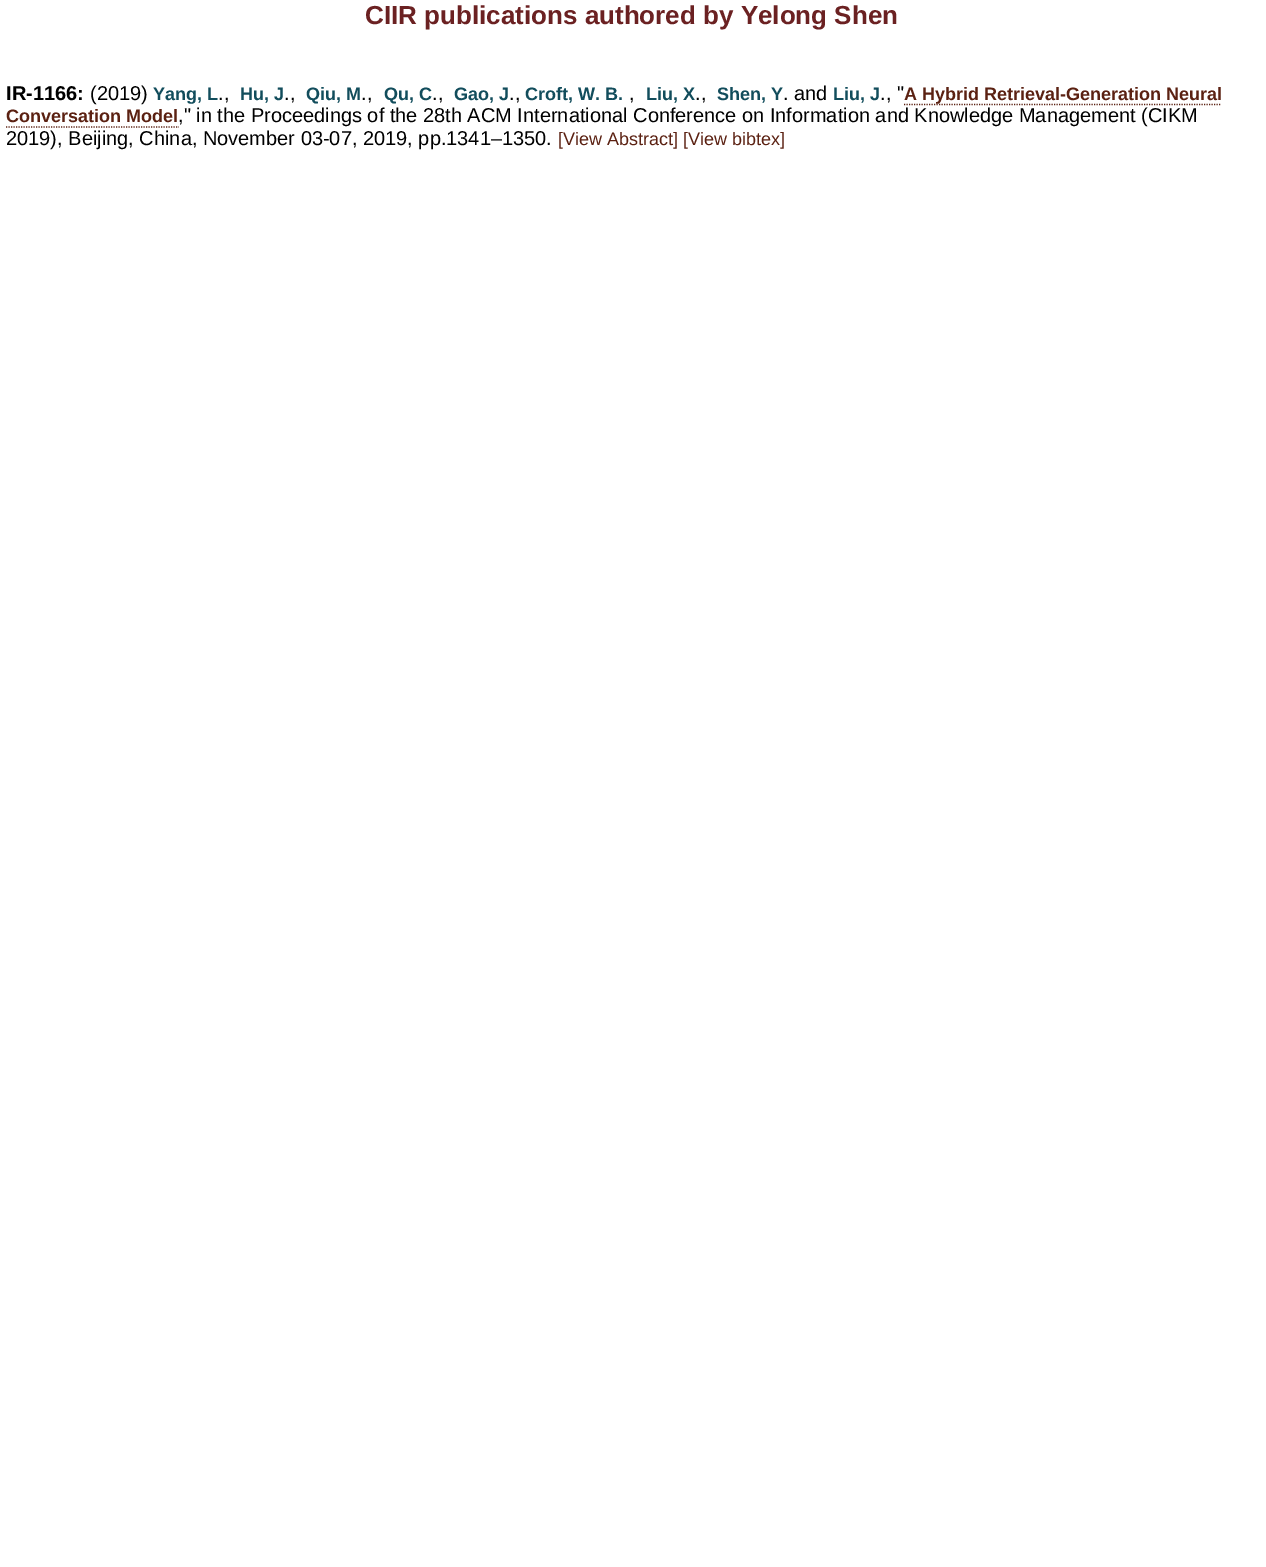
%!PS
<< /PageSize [1266 1567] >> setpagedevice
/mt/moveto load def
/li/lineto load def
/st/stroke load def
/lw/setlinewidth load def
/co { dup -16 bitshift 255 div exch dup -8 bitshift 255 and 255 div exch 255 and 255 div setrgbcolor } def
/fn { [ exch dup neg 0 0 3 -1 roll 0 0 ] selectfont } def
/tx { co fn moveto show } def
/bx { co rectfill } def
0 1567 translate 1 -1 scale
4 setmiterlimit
0 0 1266 1567 16#FFFFFF bx
16#5B2112 co
1.2 lw
[1.25 1.25] 0 setdash
904 104.5 mt 1221 104.5 li st
6 127 mt 179 127 li st
(CIIR publications authored by Yelong Shen) 365 24 /LiberationSans-Bold 26 16#6B2122 tx
(IR-1166:) 6 100 /LiberationSans-Bold 20 16#000000 tx
(\(2019\)) 90 100 /LiberationSans-Regular 20 16#000000 tx
(Yang, L) 153 100 /LiberationSans-Bold 18 16#124D5C tx
(.,) 218 100 /LiberationSans-Regular 20 16#000000 tx
(Hu, J) 240 100 /LiberationSans-Bold 18 16#124D5C tx
(.,) 284 100 /LiberationSans-Regular 20 16#000000 tx
(Qiu, M) 306 100 /LiberationSans-Bold 18 16#124D5C tx
(.,) 361 100 /LiberationSans-Regular 20 16#000000 tx
(Qu, C) 384 100 /LiberationSans-Bold 18 16#124D5C tx
(.,) 432 100 /LiberationSans-Regular 20 16#000000 tx
(Gao, J) 454 100 /LiberationSans-Bold 18 16#124D5C tx
(.,) 509 100 /LiberationSans-Regular 20 16#000000 tx
(Croft, W. B.) 525 100 /LiberationSans-Bold 18 16#124D5C tx
(,) 629 100 /LiberationSans-Regular 20 16#000000 tx
(Liu, X) 646 100 /LiberationSans-Bold 18 16#124D5C tx
(.,) 695 100 /LiberationSans-Regular 20 16#000000 tx
(Shen, Y) 717 100 /LiberationSans-Bold 18 16#124D5C tx
(. and) 783 100 /LiberationSans-Regular 20 16#000000 tx
(Liu, J) 833 100 /LiberationSans-Bold 18 16#124D5C tx
(., ") 880 100 /LiberationSans-Regular 20 16#000000 tx
(A Hybrid Retrieval-Generation Neural) 904 100 /LiberationSans-Bold 18 16#5B2112 tx
(Conversation Model) 6 122 /LiberationSans-Bold 18 16#5B2112 tx
(," in the Proceedings of the 28th ACM International Conference on Information and Knowledge Management \(CIKM) 178 122 /LiberationSans-Regular 20 16#000000 tx
(2019\), Beijing, China, November 03-07, 2019, pp.1341–1350.) 6 145 /LiberationSans-Regular 20 16#000000 tx
([View Abstract]) 558 145 /LiberationSans-Regular 18 16#5B2112 tx
([View bibtex]) 683 145 /LiberationSans-Regular 18 16#5B2112 tx
showpage
